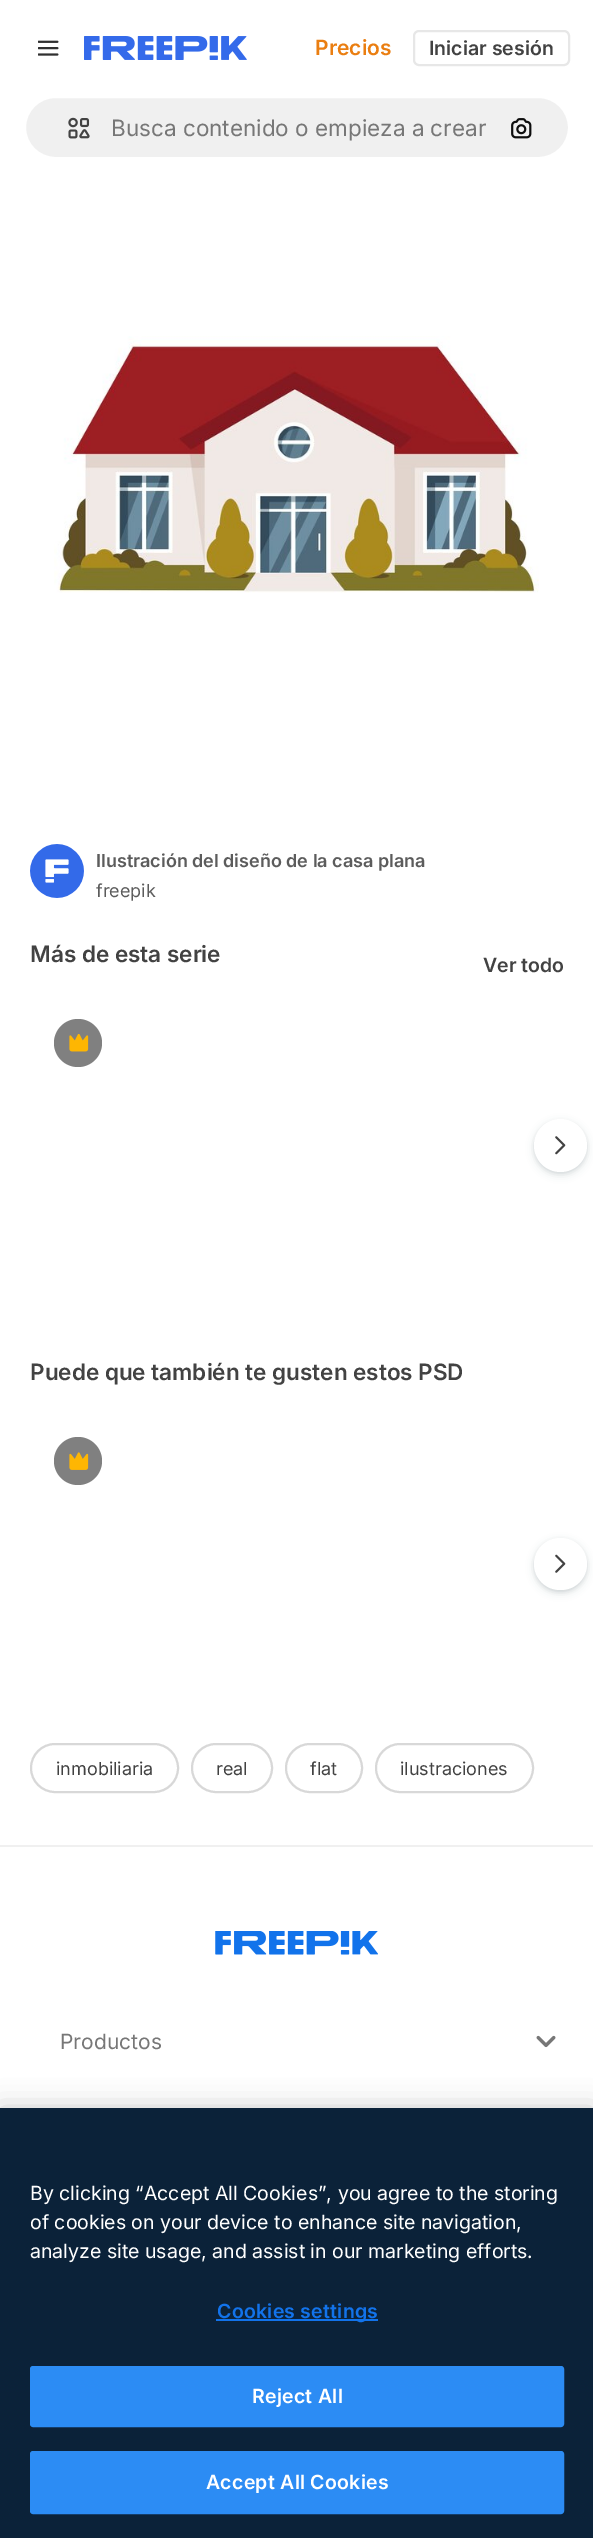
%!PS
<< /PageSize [593 2538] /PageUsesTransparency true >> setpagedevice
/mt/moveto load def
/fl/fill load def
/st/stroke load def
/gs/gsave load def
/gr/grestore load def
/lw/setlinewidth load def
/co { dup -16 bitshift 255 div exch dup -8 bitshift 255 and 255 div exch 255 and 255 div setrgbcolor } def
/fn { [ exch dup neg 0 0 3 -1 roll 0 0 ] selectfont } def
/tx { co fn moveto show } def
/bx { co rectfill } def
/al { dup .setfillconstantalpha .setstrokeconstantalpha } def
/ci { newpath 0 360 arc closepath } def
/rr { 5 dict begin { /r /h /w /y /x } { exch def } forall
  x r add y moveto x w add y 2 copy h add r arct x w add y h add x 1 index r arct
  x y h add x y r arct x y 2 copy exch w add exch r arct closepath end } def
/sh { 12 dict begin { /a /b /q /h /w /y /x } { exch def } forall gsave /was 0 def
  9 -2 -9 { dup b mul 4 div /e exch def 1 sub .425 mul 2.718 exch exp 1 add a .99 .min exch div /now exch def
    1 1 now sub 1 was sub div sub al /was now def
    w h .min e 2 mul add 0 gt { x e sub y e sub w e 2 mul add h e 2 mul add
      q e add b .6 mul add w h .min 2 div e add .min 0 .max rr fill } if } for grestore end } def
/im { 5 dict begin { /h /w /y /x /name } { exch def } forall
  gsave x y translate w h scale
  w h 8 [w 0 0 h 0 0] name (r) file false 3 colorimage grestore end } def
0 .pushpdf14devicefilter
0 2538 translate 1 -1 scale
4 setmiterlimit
0 0 593 2538 16#FFFFFF bx
(media/1.raw) 38 40 21 16 im
(media/2.raw) 84 36 163 24 im
16#E7E7E7 co
2 lw
414 31 155 34 5 rr st
16#F0F0F0 co
25 97 544 61 30.5 rr gs fl gr
16#FFFFFF co
st
(media/3.raw) 68 117 22 22 im
(media/4.raw) 511 118 21 21 im
(media/5.raw) 54 336 485 257 im
(media/6.raw) 30 844 54 54 im
16#808080 co
78 1043 24 ci fl
(media/7.raw) 69 1034 20 18 im
16#374957 co
534 1122 53 53 26.5 4 .15 sh
534 1121 53 52 26 1.5 .1 sh
16#FFFFFF co
560.5 1145.5 26.5 ci fl
(media/8.raw) 555 1136 11 19 im
16#808080 co
78 1461 24 ci fl
(media/9.raw) 69 1452 20 18 im
16#374957 co
534 1541 53 52 26 4 .15 sh
534 1539 53 53 26.5 1.5 .1 sh
16#FFFFFF co
534 1538 53 52 26 rr fl
(media/10.raw) 555 1554 11 19 im
16#D8D8D8 co
31 1744 147 48 24 rr st
192 1744 80 48 24 rr st
286 1744 76 48 24 rr st
376 1744 157 48 24 rr st
0 1845 593 2 16#F0F0F0 bx
(media/11.raw) 215 1931 163 24 im
(media/12.raw) 536 2035 20 13 im
16#000000 co
0 2108 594 430 0 13.5 .2 sh
0 2108 593 430 16#0B2239 bx
216 2319 162 2 16#1273EB bx
16#2C8CF4 co
31 2367 532 59 2 rr gs fl gr
st
31 2452 532 61 2 rr gs fl gr
st
(Precios) 315 55 /Inter-SemiBold 21 16#EA7E11 tx
(Iniciar sesión) 429 55 /Inter-SemiBold 19.5 16#424242 tx
(Busca contenido o empieza a crear) 111 136 /Inter-Regular 22.5 16#777777 tx
(Ilustración del diseño de la casa plana) 96 867 /Inter-SemiBold 18 16#5C5C5C tx
(freepik) 96 897 /Inter-Regular 18 16#5C5C5C tx
(Más de esta serie) 30 962 /Inter-SemiBold 22.5 16#424242 tx
(Ver todo) 483 972 /Inter-SemiBold 19.5 16#424242 tx
(Puede que también te gusten estos PSD) 30 1380 /Inter-SemiBold 22.5 16#424242 tx
(inmobiliaria) 56 1775 /Inter-Regular 18 16#424242 tx
(real) 216 1775 /Inter-Regular 18 16#424242 tx
(flat) 310 1775 /Inter-Regular 18 16#424242 tx
(ilustraciones) 400 1775 /Inter-Regular 18 16#424242 tx
(Productos) 60 2049 /Inter-Regular 21 16#777777 tx
(By clicking “Accept All Cookies”, you agree to the storing) 30 2200 /Inter-Regular 19.5 16#FFFFFF tx
(of cookies on your device to enhance site navigation,) 30 2229 /Inter-Regular 19.5 16#FFFFFF tx
(analyze site usage, and assist in our marketing efforts.) 30 2258 /Inter-Regular 19.5 16#FFFFFF tx
/Inter-SemiBold 19.5 fn
16#1273EB co
217 2318 mt .25 0 (Cookies settings) ashow
16#FFFFFF co
252 2403 mt .25 0 (Reject All) ashow
206 2489 mt .25 0 (Accept All Cookies) ashow
.poppdf14devicefilter showpage
